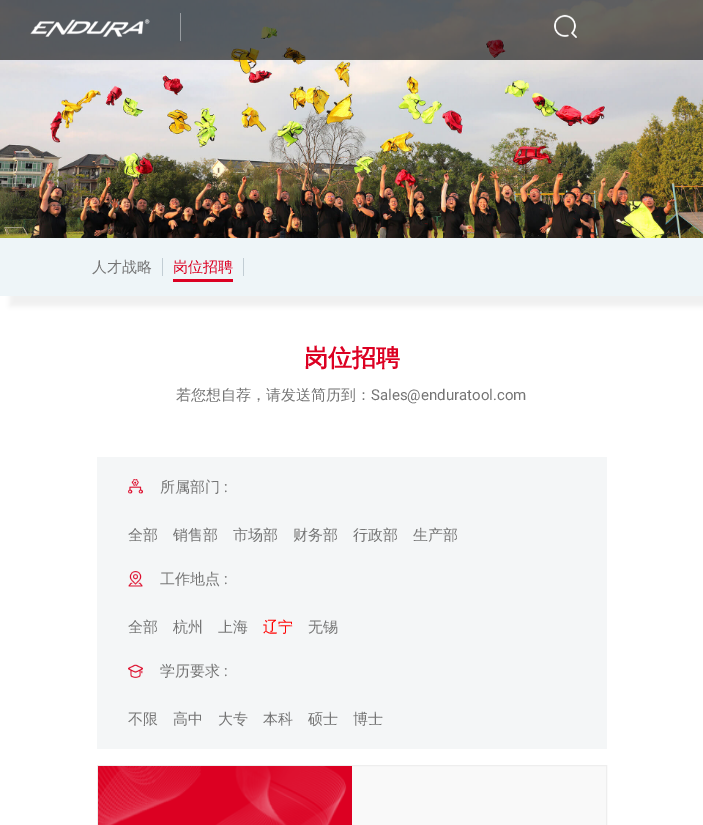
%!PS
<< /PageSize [703 825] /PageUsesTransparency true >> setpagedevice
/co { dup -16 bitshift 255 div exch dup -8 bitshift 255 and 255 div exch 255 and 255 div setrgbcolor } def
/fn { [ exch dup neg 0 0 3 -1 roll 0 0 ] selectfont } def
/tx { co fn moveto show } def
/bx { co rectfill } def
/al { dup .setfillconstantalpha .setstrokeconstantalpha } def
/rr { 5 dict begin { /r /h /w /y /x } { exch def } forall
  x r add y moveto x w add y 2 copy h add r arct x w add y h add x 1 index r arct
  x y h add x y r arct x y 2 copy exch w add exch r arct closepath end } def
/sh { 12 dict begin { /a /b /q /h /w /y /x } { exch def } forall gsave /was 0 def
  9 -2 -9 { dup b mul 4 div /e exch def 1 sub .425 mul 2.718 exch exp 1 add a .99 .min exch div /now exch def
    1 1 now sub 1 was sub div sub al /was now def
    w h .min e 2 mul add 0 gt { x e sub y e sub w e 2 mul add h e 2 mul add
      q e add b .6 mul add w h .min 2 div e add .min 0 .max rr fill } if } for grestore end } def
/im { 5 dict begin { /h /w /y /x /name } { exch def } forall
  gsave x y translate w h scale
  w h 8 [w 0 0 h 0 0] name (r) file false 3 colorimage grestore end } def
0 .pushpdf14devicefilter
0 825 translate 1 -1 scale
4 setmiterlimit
0 0 703 825 16#FFFFFF bx
(media/1.raw) 0 0 703 238 im
0.6 al
0 0 703 60 16#000000 bx
1 al
180 13 1 28 16#989CA0 bx
(media/2.raw) 30 19 120 18 im
(media/3.raw) 554 14 23 24 im
16#EFEFEF co
10 248 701 58 0 2.5 1 sh
0 238 703 58 16#EEF5F8 bx
162 258 1 18 16#C2CDD4 bx
243 258 1 18 16#C2CDD4 bx
173 279 60 3 16#DC0022 bx
97 457 510 292 16#F4F6F7 bx
(media/4.raw) 128 479 15 15 im
(media/5.raw) 128 571 15 16 im
(media/6.raw) 128 664 15 14 im
352 766 254 59 16#F9F9F9 bx
16#EEEEEE co
97.5 765.5 509 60 rectstroke
(media/7.raw) 98 766 254 59 im
(人才战略) 92 272 /WenQuanYiZenHei-Medium 15 16#747474 tx
(岗位招聘) 173 272 /WenQuanYiZenHei-Medium 15 16#DC0022 tx
(岗位招聘) 304 366 /WenQuanYiZenHei-Bold 24 16#DC0022 tx
(若您想自荐，请发送简历到：) 176 400 /WenQuanYiZenHei-Medium 15 16#747474 tx
(Sales@enduratool.com) 371 400 /Roboto-Regular 15 16#747474 tx
(所属部门) 160 492 /WenQuanYiZenHei-Medium 15 16#747474 tx
(:) 224 492 /Roboto-Regular 15 16#747474 tx
(全部) 128 540 /WenQuanYiZenHei-Medium 15 16#747474 tx
(销售部) 173 540 /WenQuanYiZenHei-Medium 15 16#747474 tx
(市场部) 233 540 /WenQuanYiZenHei-Medium 15 16#747474 tx
(财务部) 293 540 /WenQuanYiZenHei-Medium 15 16#747474 tx
(行政部) 353 540 /WenQuanYiZenHei-Medium 15 16#747474 tx
(生产部) 413 540 /WenQuanYiZenHei-Medium 15 16#747474 tx
(工作地点) 160 584 /WenQuanYiZenHei-Medium 15 16#747474 tx
(:) 224 584 /Roboto-Regular 15 16#747474 tx
(全部) 128 632 /WenQuanYiZenHei-Medium 15 16#747474 tx
(杭州) 173 632 /WenQuanYiZenHei-Medium 15 16#747474 tx
(上海) 218 632 /WenQuanYiZenHei-Medium 15 16#747474 tx
(辽宁) 263 632 /WenQuanYiZenHei-Medium 15 16#FF0000 tx
(无锡) 308 632 /WenQuanYiZenHei-Medium 15 16#747474 tx
(学历要求) 160 676 /WenQuanYiZenHei-Medium 15 16#747474 tx
(:) 224 676 /Roboto-Regular 15 16#747474 tx
(不限) 128 724 /WenQuanYiZenHei-Medium 15 16#747474 tx
(高中) 173 724 /WenQuanYiZenHei-Medium 15 16#747474 tx
(大专) 218 724 /WenQuanYiZenHei-Medium 15 16#747474 tx
(本科) 263 724 /WenQuanYiZenHei-Medium 15 16#747474 tx
(硕士) 308 724 /WenQuanYiZenHei-Medium 15 16#747474 tx
(博士) 353 724 /WenQuanYiZenHei-Medium 15 16#747474 tx
.poppdf14devicefilter showpage
